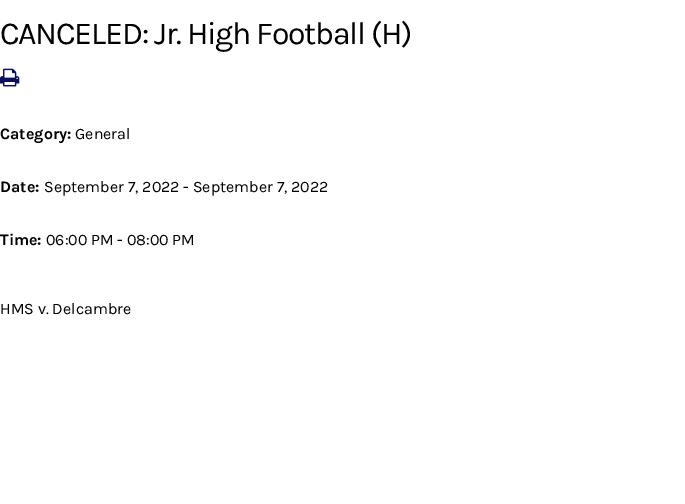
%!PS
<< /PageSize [685 504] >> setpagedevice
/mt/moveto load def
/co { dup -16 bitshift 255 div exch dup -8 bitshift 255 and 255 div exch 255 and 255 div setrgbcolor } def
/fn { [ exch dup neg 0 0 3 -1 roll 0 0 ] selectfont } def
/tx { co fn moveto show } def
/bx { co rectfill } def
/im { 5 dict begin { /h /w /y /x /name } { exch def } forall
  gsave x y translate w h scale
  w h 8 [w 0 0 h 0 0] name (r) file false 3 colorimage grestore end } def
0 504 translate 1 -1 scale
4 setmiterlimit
0 0 685 504 16#FFFFFF bx
(media/1.raw) 0 68 20 19 im
/Karla-Regular 32 fn
16#000000 co
0 44 mt -1.25 0 (CANCELED: Jr. High Football \(H\)) ashow
(Category:) 0 139 /Karla-Bold 16 16#000000 tx
(General) 75 139 /Karla-Regular 16 16#000000 tx
(Date:) 0 192 /Karla-Bold 16 16#000000 tx
(September 7, 2022 - September 7, 2022) 44 192 /Karla-Regular 16 16#000000 tx
(Time:) 0 245 /Karla-Bold 16 16#000000 tx
(06:00 PM - 08:00 PM) 46 245 /Karla-Regular 16 16#000000 tx
(HMS v. Delcambre) 0 314 /Karla-Regular 16 16#000000 tx
showpage
